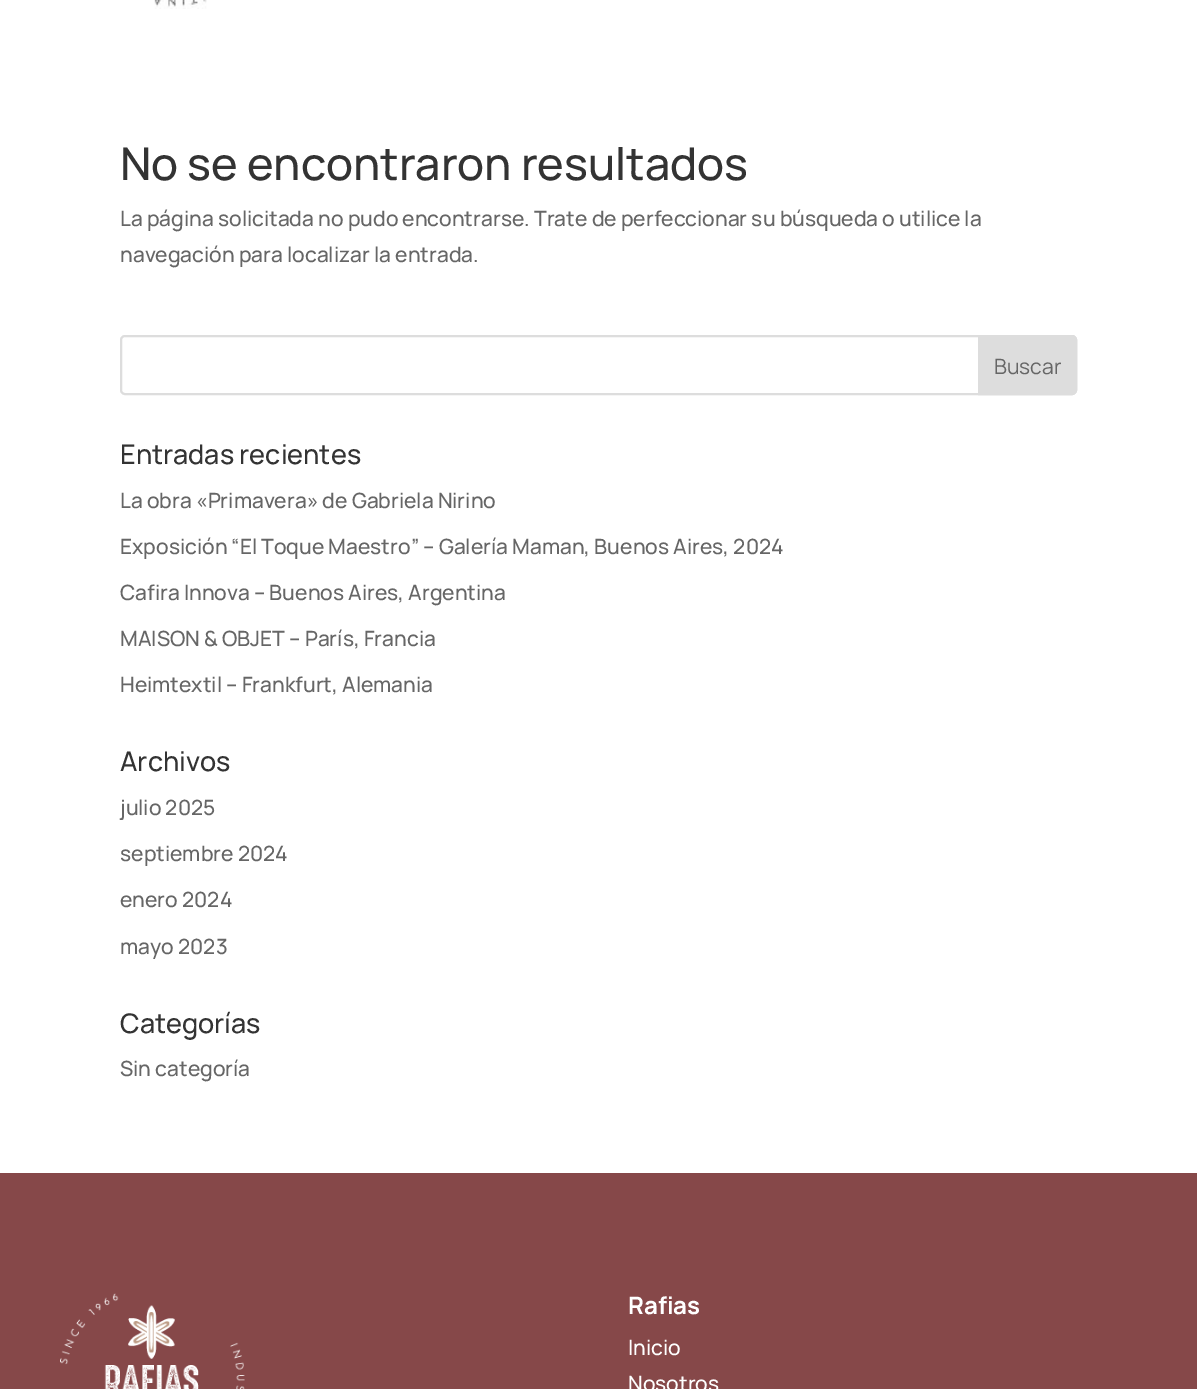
%!PS
<< /PageSize [1197 1389] >> setpagedevice
/mt/moveto load def
/li/lineto load def
/ct/curveto load def
/cp/closepath load def
/fl/fill load def
/st/stroke load def
/gs/gsave load def
/gr/grestore load def
/lw/setlinewidth load def
/co { dup -16 bitshift 255 div exch dup -8 bitshift 255 and 255 div exch 255 and 255 div setrgbcolor } def
/fn { [ exch dup neg 0 0 3 -1 roll 0 0 ] selectfont } def
/tx { co fn moveto show } def
/bx { co rectfill } def
/rr { 5 dict begin { /r /h /w /y /x } { exch def } forall
  x r add y moveto x w add y 2 copy h add r arct x w add y h add x 1 index r arct
  x y h add x y r arct x y 2 copy exch w add exch r arct closepath end } def
/im { 5 dict begin { /h /w /y /x /name } { exch def } forall
  gsave x y translate w h scale
  w h 8 [w 0 0 h 0 0] name (r) file false 3 colorimage grestore end } def
0 1389 translate 1 -1 scale
4 setmiterlimit
0 0 1197 1389 16#FFFFFF bx
(media/1.raw) 154 0 53 9 im
16#DDDDDD co
2 lw
121 336 955 58 4 rr st
979 336 mt 1072 336 li 1074 336 1076 338 1076 340 ct 1076 390 li 1076 392 1074 394 1072 394 ct 979 394 li cp gs fl gr
st
0 1173 1197 216 16#864849 bx
(media/2.raw) 60 1293 185 96 im
(No se encontraron resultados) 120 180 /Manrope-Medium 45 16#333333 tx
(La página solicitada no pudo encontrarse. Trate de perfeccionar su búsqueda o utilice la) 120 226 /Manrope-Medium 21 16#666666 tx
(navegación para localizar la entrada.) 120 262 /Manrope-Medium 21 16#666666 tx
(Buscar) 994 374 /Manrope-Regular 21 16#666666 tx
(Entradas recientes) 120 464 /Manrope-Medium 27 16#333333 tx
(La obra «Primavera» de Gabriela Nirino) 120 508 /Manrope-Medium 21 16#666666 tx
(Exposición “El Toque Maestro” – Galería Maman, Buenos Aires, 2024) 120 554 /Manrope-Medium 21 16#666666 tx
(Cafira Innova – Buenos Aires, Argentina) 120 600 /Manrope-Medium 21 16#666666 tx
(MAISON & OBJET – París, Francia) 120 646 /Manrope-Medium 21 16#666666 tx
(Heimtextil – Frankfurt, Alemania) 120 692 /Manrope-Medium 21 16#666666 tx
(Archivos) 120 771 /Manrope-Medium 27 16#333333 tx
(julio 2025) 120 815 /Manrope-Medium 21 16#666666 tx
(septiembre 2024) 120 861 /Manrope-Medium 21 16#666666 tx
(enero 2024) 120 907 /Manrope-Medium 21 16#666666 tx
(mayo 2023) 120 954 /Manrope-Medium 21 16#666666 tx
(Categorías) 120 1033 /Manrope-Medium 27 16#333333 tx
(Sin categoría) 120 1076 /Manrope-Medium 21 16#666666 tx
(Rafias) 628 1314 /Manrope-Bold 24 16#FFFFFF tx
(Inicio) 628 1355 /Manrope-Medium 21 16#FFFFFF tx
(Nosotros) 628 1391 /Manrope-Medium 21 16#FFFFFF tx
showpage
